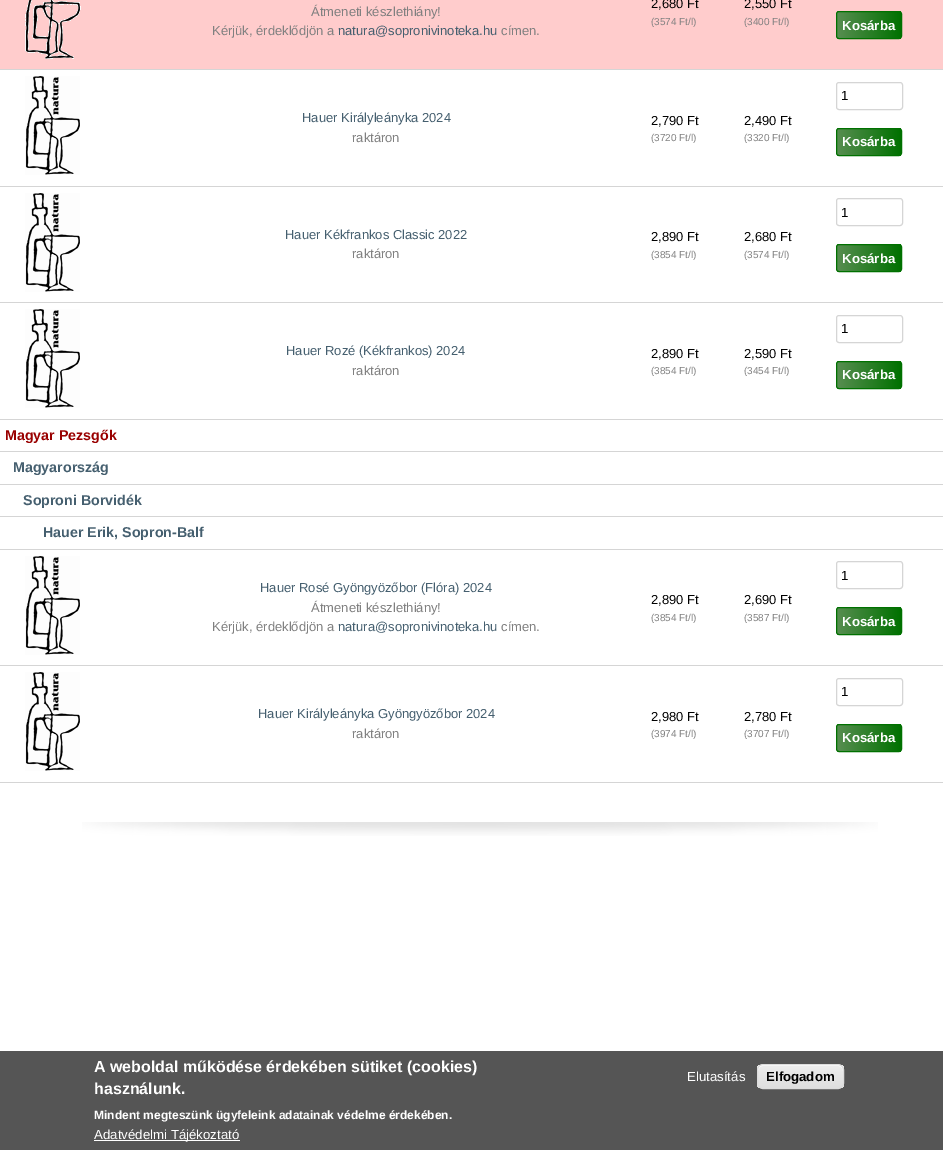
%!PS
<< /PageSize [943 1150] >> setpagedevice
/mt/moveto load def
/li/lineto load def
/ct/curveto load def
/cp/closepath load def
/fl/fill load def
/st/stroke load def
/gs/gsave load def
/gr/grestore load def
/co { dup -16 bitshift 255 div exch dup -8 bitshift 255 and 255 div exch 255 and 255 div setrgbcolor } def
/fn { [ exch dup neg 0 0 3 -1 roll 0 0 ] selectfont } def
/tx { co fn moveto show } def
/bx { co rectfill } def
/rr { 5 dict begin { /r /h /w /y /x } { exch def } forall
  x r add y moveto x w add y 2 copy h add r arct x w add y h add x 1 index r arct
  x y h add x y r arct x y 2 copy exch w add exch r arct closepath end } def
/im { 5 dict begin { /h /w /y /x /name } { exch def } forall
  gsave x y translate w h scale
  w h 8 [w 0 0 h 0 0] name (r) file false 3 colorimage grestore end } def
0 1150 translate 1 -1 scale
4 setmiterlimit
0 0 943 1150 16#FFFFFF bx
(media/1.raw) 82 822 796 14 im
0 0 943 69 16#FFCCCC bx
0 69 943 1 16#D5D5D5 bx
(media/2.raw) 25 0 56 59 im
gs
836 11 66 28 3 rr clip newpath
gs 837 11 mt 901 11 li 901 39 li 837 39 li cp clip newpath
<< /ShadingType 2 /ColorSpace /DeviceRGB /Coords [901 25 837 25] /Extend [true true] /Function << /FunctionType 2 /Domain [0 1] /C0 [0 .443 0] /C1 [.345 .557 .318] /N 1 >> >> shfill gr
gr
16#007100 co
836.5 11.5 65 27 2.5 rr st
0 186 943 1 16#D5D5D5 bx
(media/3.raw) 25 76 55 99 im
836.5 82.5 66 27 2.5 rr st
gs
836 128 66 28 3 rr clip newpath
gs 837 128 mt 901 128 li 901 156 li 837 156 li cp clip newpath
<< /ShadingType 2 /ColorSpace /DeviceRGB /Coords [901 142 837 142] /Extend [true true] /Function << /FunctionType 2 /Domain [0 1] /C0 [0 .443 0] /C1 [.345 .557 .318] /N 1 >> >> shfill gr
gr
16#007100 co
836.5 128.5 65 27 2.5 rr st
0 302 943 1 16#D5D5D5 bx
(media/3.raw) 25 193 55 99 im
836.5 198.5 66 27 2.5 rr st
gs
836 244 66 28 3 rr clip newpath
gs 837 244 mt 901 244 li 901 272 li 837 272 li cp clip newpath
<< /ShadingType 2 /ColorSpace /DeviceRGB /Coords [901 258 837 258] /Extend [true true] /Function << /FunctionType 2 /Domain [0 1] /C0 [0 .443 0] /C1 [.345 .557 .318] /N 1 >> >> shfill gr
gr
16#007100 co
836.5 244.5 65 27 2.5 rr st
0 419 943 1 16#D5D5D5 bx
(media/3.raw) 25 309 55 99 im
836.5 315.5 66 27 2.5 rr st
gs
836 361 66 28 3 rr clip newpath
gs 837 361 mt 901 361 li 901 389 li 837 389 li cp clip newpath
<< /ShadingType 2 /ColorSpace /DeviceRGB /Coords [901 375 837 375] /Extend [true true] /Function << /FunctionType 2 /Domain [0 1] /C0 [0 .443 0] /C1 [.345 .557 .318] /N 1 >> >> shfill gr
gr
16#007100 co
836.5 361.5 65 27 2.5 rr st
0 451 943 1 16#D5D5D5 bx
0 484 943 1 16#D5D5D5 bx
0 516 943 1 16#D5D5D5 bx
0 549 943 1 16#D5D5D5 bx
0 665 943 1 16#D5D5D5 bx
(media/3.raw) 25 556 55 99 im
836.5 561.5 66 27 2.5 rr st
gs
836 607 66 28 3 rr clip newpath
gs 837 607 mt 901 607 li 901 635 li 837 635 li cp clip newpath
<< /ShadingType 2 /ColorSpace /DeviceRGB /Coords [901 621 837 621] /Extend [true true] /Function << /FunctionType 2 /Domain [0 1] /C0 [0 .443 0] /C1 [.345 .557 .318] /N 1 >> >> shfill gr
gr
16#007100 co
836.5 607.5 65 27 2.5 rr st
0 782 943 1 16#D5D5D5 bx
(media/3.raw) 25 672 55 99 im
836.5 678.5 66 27 2.5 rr st
gs
836 724 66 28 3 rr clip newpath
gs 837 724 mt 901 724 li 901 752 li 837 752 li cp clip newpath
<< /ShadingType 2 /ColorSpace /DeviceRGB /Coords [901 738 837 738] /Extend [true true] /Function << /FunctionType 2 /Domain [0 1] /C0 [0 .443 0] /C1 [.345 .557 .318] /N 1 >> >> shfill gr
gr
16#007100 co
836.5 724.5 65 27 2.5 rr st
0 1051 943 99 16#555555 bx
94 1140 146 1 16#FFFFFF bx
gs
757 1064 87 25 6 rr clip newpath
gs 757 1065 mt 844 1065 li 844 1088 li 757 1088 li cp clip newpath
<< /ShadingType 2 /ColorSpace /DeviceRGB /Coords [801 1065 801 1088] /Extend [true true] /Function << /FunctionType 3 /Domain [0 1] /Functions [<< /FunctionType 2 /Domain [0 1] /C0 [.929 .929 .929] /C1 [.929 .929 .929] /N 1 >> << /FunctionType 2 /Domain [0 1] /C0 [.929 .929 .929] /C1 [.875 .875 .875] /N 1 >>] /Bounds [.05] /Encode [0 1 0 1] >> >> shfill gr
gr
763 1066 mt 838 1066 li 841 1066 843 1068 843 1071 ct 843 1062 831 1065 826 1065 ct 776 1065 li 770 1065 758 1062 758 1071 ct 758 1068 760 1066 763 1066 ct cp fl
16#DCDCDC co
757.5 1064.5 86 24 5.5 rr st
(Átmeneti készlethiány!) 311 16 /LiberationSans-Regular 13 16#808080 tx
(Kérjük, érdeklődjön a) 212 35 /LiberationSans-Regular 13 16#808080 tx
(natura@sopronivinoteka.hu) 338 35 /LiberationSans-Regular 13 16#455F6F tx
(címen.) 501 35 /LiberationSans-Regular 13 16#808080 tx
(2,680 Ft) 651 8 /LiberationSans-Regular 13 16#000000 tx
(\(3574 Ft/l\)) 651 25 /LiberationSans-Regular 10 16#808080 tx
(2,550 Ft) 744 8 /LiberationSans-Regular 13 16#000000 tx
(\(3400 Ft/l\)) 744 25 /LiberationSans-Regular 10 16#808080 tx
(Kosárba) 842 30 /LiberationSans-Bold 13.25 16#FFFFFF tx
(Hauer Királyleányka 2024) 302 122 /LiberationSans-Regular 13 16#455F6F tx
(raktáron) 352 142 /LiberationSans-Regular 13 16#808080 tx
(2,790 Ft) 651 125 /LiberationSans-Regular 13 16#000000 tx
(\(3720 Ft/l\)) 651 141 /LiberationSans-Regular 10 16#808080 tx
(2,490 Ft) 744 125 /LiberationSans-Regular 13 16#000000 tx
(\(3320 Ft/l\)) 744 141 /LiberationSans-Regular 10 16#808080 tx
(1) 841 100 /LiberationSans-Regular 13.25 16#000000 tx
(Kosárba) 842 146 /LiberationSans-Bold 13.25 16#FFFFFF tx
(Hauer Kékfrankos Classic 2022) 285 239 /LiberationSans-Regular 13 16#455F6F tx
(raktáron) 352 258 /LiberationSans-Regular 13 16#808080 tx
(2,890 Ft) 651 241 /LiberationSans-Regular 13 16#000000 tx
(\(3854 Ft/l\)) 651 258 /LiberationSans-Regular 10 16#808080 tx
(2,680 Ft) 744 241 /LiberationSans-Regular 13 16#000000 tx
(\(3574 Ft/l\)) 744 258 /LiberationSans-Regular 10 16#808080 tx
(1) 841 217 /LiberationSans-Regular 13.25 16#000000 tx
(Kosárba) 842 263 /LiberationSans-Bold 13.25 16#FFFFFF tx
(Hauer Rozé \(Kékfrankos\) 2024) 286 355 /LiberationSans-Regular 13 16#455F6F tx
(raktáron) 352 375 /LiberationSans-Regular 13 16#808080 tx
(2,890 Ft) 651 358 /LiberationSans-Regular 13 16#000000 tx
(\(3854 Ft/l\)) 651 374 /LiberationSans-Regular 10 16#808080 tx
(2,590 Ft) 744 358 /LiberationSans-Regular 13 16#000000 tx
(\(3454 Ft/l\)) 744 374 /LiberationSans-Regular 10 16#808080 tx
(1) 841 333 /LiberationSans-Regular 13.25 16#000000 tx
(Kosárba) 842 379 /LiberationSans-Bold 13.25 16#FFFFFF tx
(Magyar Pezsgők) 5 440 /LiberationSans-Bold 14.25 16#990000 tx
(Magyarország) 13 472 /LiberationSans-Bold 14.25 16#455F6F tx
(Soproni Borvidék) 23 505 /LiberationSans-Bold 14.25 16#455F6F tx
(Hauer Erik, Sopron-Balf) 43 537 /LiberationSans-Bold 14.25 16#455F6F tx
(Hauer Rosé Gyöngyözőbor \(Flóra\) 2024) 260 592 /LiberationSans-Regular 13 16#455F6F tx
(Átmeneti készlethiány!) 311 612 /LiberationSans-Regular 13 16#808080 tx
(Kérjük, érdeklődjön a) 212 631 /LiberationSans-Regular 13 16#808080 tx
(natura@sopronivinoteka.hu) 338 631 /LiberationSans-Regular 13 16#455F6F tx
(címen.) 501 631 /LiberationSans-Regular 13 16#808080 tx
(2,890 Ft) 651 604 /LiberationSans-Regular 13 16#000000 tx
(\(3854 Ft/l\)) 651 621 /LiberationSans-Regular 10 16#808080 tx
(2,690 Ft) 744 604 /LiberationSans-Regular 13 16#000000 tx
(\(3587 Ft/l\)) 744 621 /LiberationSans-Regular 10 16#808080 tx
(1) 841 580 /LiberationSans-Regular 13.25 16#000000 tx
(Kosárba) 842 626 /LiberationSans-Bold 13.25 16#FFFFFF tx
(Hauer Királyleányka Gyöngyözőbor 2024) 258 718 /LiberationSans-Regular 13 16#455F6F tx
(raktáron) 352 738 /LiberationSans-Regular 13 16#808080 tx
(2,980 Ft) 651 721 /LiberationSans-Regular 13 16#000000 tx
(\(3974 Ft/l\)) 651 737 /LiberationSans-Regular 10 16#808080 tx
(2,780 Ft) 744 721 /LiberationSans-Regular 13 16#000000 tx
(\(3707 Ft/l\)) 744 737 /LiberationSans-Regular 10 16#808080 tx
(1) 841 696 /LiberationSans-Regular 13.25 16#000000 tx
(Kosárba) 842 742 /LiberationSans-Bold 13.25 16#FFFFFF tx
(A weboldal működése érdekében sütiket \(cookies\)) 94 1072 /LiberationSans-Bold 16 16#FFFFFF tx
(használunk.) 94 1094 /LiberationSans-Bold 16 16#FFFFFF tx
(Mindent megteszünk ügyfeleink adatainak védelme érdekében.) 94 1119 /LiberationSans-Bold 12 16#FFFFFF tx
(Adatvédelmi Tájékoztató) 94 1139 /LiberationSans-Regular 13.25 16#FFFFFF tx
(Elutasítás) 687 1081 /LiberationSans-Regular 13.25 16#FFFFFF tx
(Elfogadom) 766 1081 /LiberationSans-Bold 13.25 16#000000 tx
showpage
